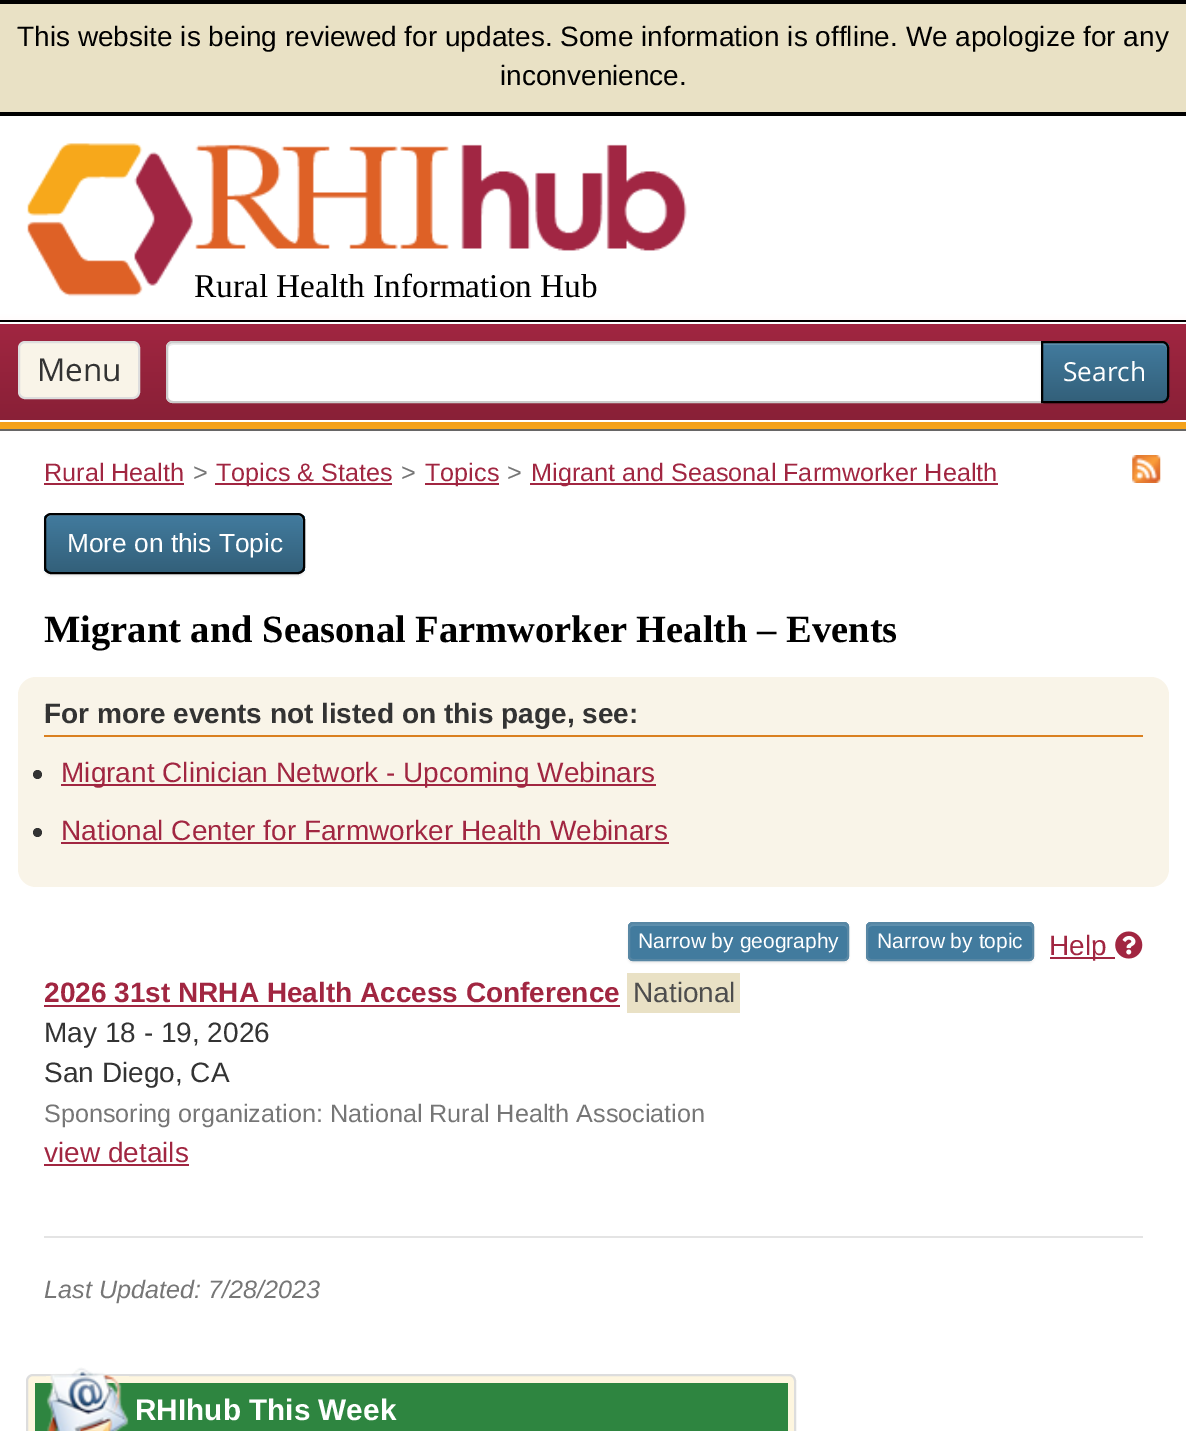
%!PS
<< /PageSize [1186 1431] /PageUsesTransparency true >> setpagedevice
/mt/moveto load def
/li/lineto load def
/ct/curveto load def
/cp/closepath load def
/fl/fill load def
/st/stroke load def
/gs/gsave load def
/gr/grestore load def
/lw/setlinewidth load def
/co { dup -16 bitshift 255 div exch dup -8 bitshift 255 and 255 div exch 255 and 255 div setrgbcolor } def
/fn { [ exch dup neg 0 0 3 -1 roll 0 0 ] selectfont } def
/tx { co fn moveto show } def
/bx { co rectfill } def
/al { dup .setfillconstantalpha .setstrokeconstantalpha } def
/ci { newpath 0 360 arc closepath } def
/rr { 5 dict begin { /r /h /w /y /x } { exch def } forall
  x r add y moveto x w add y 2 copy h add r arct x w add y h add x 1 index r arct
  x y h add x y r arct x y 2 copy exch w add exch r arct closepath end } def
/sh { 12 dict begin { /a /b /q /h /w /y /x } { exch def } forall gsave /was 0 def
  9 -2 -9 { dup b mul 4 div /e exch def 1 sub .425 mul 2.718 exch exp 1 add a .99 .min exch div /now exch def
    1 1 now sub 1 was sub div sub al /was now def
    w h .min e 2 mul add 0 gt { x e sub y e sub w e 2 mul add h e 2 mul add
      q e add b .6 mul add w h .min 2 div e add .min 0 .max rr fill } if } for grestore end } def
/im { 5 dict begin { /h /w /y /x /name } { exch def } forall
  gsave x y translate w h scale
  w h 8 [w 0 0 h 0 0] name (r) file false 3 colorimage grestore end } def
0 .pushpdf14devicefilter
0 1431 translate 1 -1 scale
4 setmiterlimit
0 0 1186 1431 16#FFFFFF bx
0 320 1186 2 16#000000 bx
0 4 1186 108 16#E9E1C5 bx
0 0 1186 4 16#000000 bx
0 112 1186 4 16#000000 bx
(media/1.raw) 27 143 660 154 im
16#666666 co
0 429 mt 0 431 li 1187 431 li 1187 324 li 1186 324 li 1186 429 li cp fl
0 422 1186 7 16#F7A81B bx
16#96051D co
0 324 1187 100 0 4.5 .07 sh
gs 0 324 mt 1186 324 li 1186 420 li 0 420 li cp clip newpath
<< /ShadingType 2 /ColorSpace /DeviceRGB /Coords [593 324 593 420] /Extend [true true] /Function << /FunctionType 2 /Domain [0 1] /C0 [.631 .149 .255] /C1 [.537 .125 .216] /N 1 >> >> shfill gr
0 322 1186 2 16#FFFFFF bx
0 420 1186 2 16#FFFFFF bx
16#F9F4E8 co
19 342 120 56 6 rr gs fl gr
16#DDDDDD co
2 lw
st
16#FFFFFF co
173 341 mt 1043 341 li 1043 403 li 173 403 li 169 403 166 400 166 396 ct 166 348 li 166 344 169 341 173 341 ct cp fl
16#ECECEC co
173 345 mt 1041 345 li 1041 343 li 173 343 li 169 343 168 347 168 350 ct 168 347 170 345 173 345 ct cp fl
16#CCCCCC co
173 342 mt 1042 342 li 1042 402 li 173 402 li 169.5 402 167 399.5 167 396 ct 167 348 li 167 344.5 169.5 342 173 342 ct cp st
16#000000 co
1041 343 128 61 7 1 .07 sh
gs
1041 341 mt 1162 341 li 1166 341 1169 344 1169 348 ct 1169 396 li 1169 400 1166 403 1162 403 ct 1041 403 li cp clip newpath
gs 1043 343 mt 1169 343 li 1169 401 li 1043 401 li cp clip newpath
<< /ShadingType 2 /ColorSpace /DeviceRGB /Coords [1105 343 1105 401] /Extend [true true] /Function << /FunctionType 2 /Domain [0 1] /C0 [.259 .482 .62] /C1 [.2 .376 .478] /N 1 >> >> shfill gr
gr
0.15 al
16#FFFFFF co
1043 345 mt 1162 345 li 1165 345 1167 347 1167 350 ct 1167 348 li 1167 345 1165 343 1162 343 ct 1043 343 li cp fl
1 al
16#000000 co
1042 342 mt 1162 342 li 1165.5 342 1168 344.5 1168 348 ct 1168 396 li 1168 399.5 1165.5 402 1162 402 ct 1042 402 li cp st
44 483 140 2 16#A12641 bx
215 483 177 2 16#A12641 bx
425 483 74 2 16#A12641 bx
530 483 468 2 16#A12641 bx
(media/2.raw) 1132 455 29 28 im
16#000000 co
44 515 261 61 7 1 .07 sh
gs
44 513 261 61 7 rr clip newpath
gs 44 515 mt 305 515 li 305 572 li 44 572 li cp clip newpath
<< /ShadingType 2 /ColorSpace /DeviceRGB /Coords [174 515 174 572] /Extend [true true] /Function << /FunctionType 2 /Domain [0 1] /C0 [.259 .482 .62] /C1 [.2 .376 .478] /N 1 >> >> shfill gr
gr
0.15 al
16#FFFFFF co
51 516 mt 298 516 li 300 516 303 519 303 522 ct 303 520 li 303 517 301 515 298 515 ct 51 515 li 48 515 46 517 46 520 ct 46 522 li 46 519 48 516 51 516 ct cp fl
1 al
16#000000 co
45 514 259 59 6 rr st
16#F9F4E8 co
18 677 1151 210 18 rr fl
44 735 1099 2 16#DA8020 bx
16#333333 co
37.5 774.5 4.5 ci fl
61 784 595 2 16#A12641 bx
16#333333 co
37.5 832.5 4.5 ci fl
61 842 608 2 16#A12641 bx
16#000000 co
628 924 221 39 5 1 .07 sh
16#427B9E co
628 922 221 39 5 rr fl
16#5E8FAD co
634 926 mt 844 926 li 845 926 847 927 847 929 ct 847 926 846 924 843 924 ct 632 924 li 630 925 630 927 630 929 ct 630 927 632 926 634 926 ct cp fl
16#5887A4 co
629 923 219 37 4 rr st
16#000000 co
866 924 168 39 5 1 .07 sh
16#427B9E co
866 922 168 39 5 rr fl
16#5E8FAD co
872 926 mt 1029 926 li 1031 926 1032 927 1032 929 ct 1032 958 li 1033 957 1033 956 1033 955 ct 1033 928 li 1033 926 1031 924 1029 924 ct 872 924 li 870 924 868 926 868 928 ct 868 929 li 868 927 870 926 872 926 ct cp fl
16#5887A4 co
867 923 166 37 4 rr st
1050 957 65 2 16#A12641 bx
(media/3.raw) 1115 931 28 28 im
44 1005 576 2 16#A12641 bx
627 973 113 40 16#E9E1C5 bx
44 1164 145 2 16#A12641 bx
44 1236 1099 2 16#E4E4E4 bx
16#FEF6DF co
27 1375 768 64 6 rr gs fl gr
16#DDDDDD co
st
35 1383 753 48 16#2E8540 bx
(media/4.raw) 46 1367 83 64 im
(This website is being reviewed for updates. Some information is offline. We apologize for any) 17 46 /LiberationSans-Regular 28 16#000000 tx
(inconvenience.) 500 85 /LiberationSans-Regular 28 16#000000 tx
(Rural Health Information Hub) 194 297 /LiberationSerif-Regular 33.25 16#000000 tx
(Menu) 37 381 /OpenSans-Regular 31.5 16#333333 tx
(Search) 1063 381 /OpenSans-Regular 26.25 16#FFFFFF tx
(Rural Health) 44 481 /LiberationSans-Regular 25.2 16#A12641 tx
(>) 193 481 /LiberationSans-Regular 25.2 16#767676 tx
(Topics & States) 216 481 /LiberationSans-Regular 25.2 16#A12641 tx
(>) 401 481 /LiberationSans-Regular 25.2 16#767676 tx
(Topics) 425 481 /LiberationSans-Regular 25.2 16#A12641 tx
(>) 507 481 /LiberationSans-Regular 25.2 16#767676 tx
(Migrant and Seasonal Farmworker Health) 531 481 /LiberationSans-Regular 25.2 16#A12641 tx
(More on this Topic) 67 552 /LiberationSans-Regular 26.25 16#FFFFFF tx
(Migrant and Seasonal Farmworker Health – Events) 44 642 /LiberationSerif-Bold 38.5 16#000000 tx
(For more events not listed on this page, see:) 44 723 /LiberationSans-Bold 28 16#333333 tx
(Migrant Clinician Network - Upcoming Webinars) 61 782 /LiberationSans-Regular 28 16#A12641 tx
(National Center for Farmworker Health Webinars) 61 840 /LiberationSans-Regular 28 16#A12641 tx
(Narrow by geography) 638 948 /LiberationSans-Regular 21 16#FFFFFF tx
(Narrow by topic) 877 948 /LiberationSans-Regular 21 16#FFFFFF tx
(Help) 1049 955 /LiberationSans-Regular 28 16#A12641 tx
(2026 31st NRHA Health Access Conference) 44 1002 /LiberationSans-Bold 28 16#A12641 tx
(National) 633 1002 /LiberationSans-Regular 28 16#4D4D4D tx
(May 18 - 19, 2026) 44 1042 /LiberationSans-Regular 28 16#333333 tx
(San Diego, CA) 44 1082 /LiberationSans-Regular 28 16#333333 tx
(Sponsoring organization: National Rural Health Association) 44 1122 /LiberationSans-Regular 25.2 16#767676 tx
(view details) 44 1162 /LiberationSans-Regular 28 16#A12641 tx
(Last Updated: 7/28/2023) 44 1298 /LiberationSans-Italic 25.2 16#767676 tx
(RHIhub This Week) 135 1420 /LiberationSans-Bold 29.75 16#FFFFFF tx
.poppdf14devicefilter showpage
